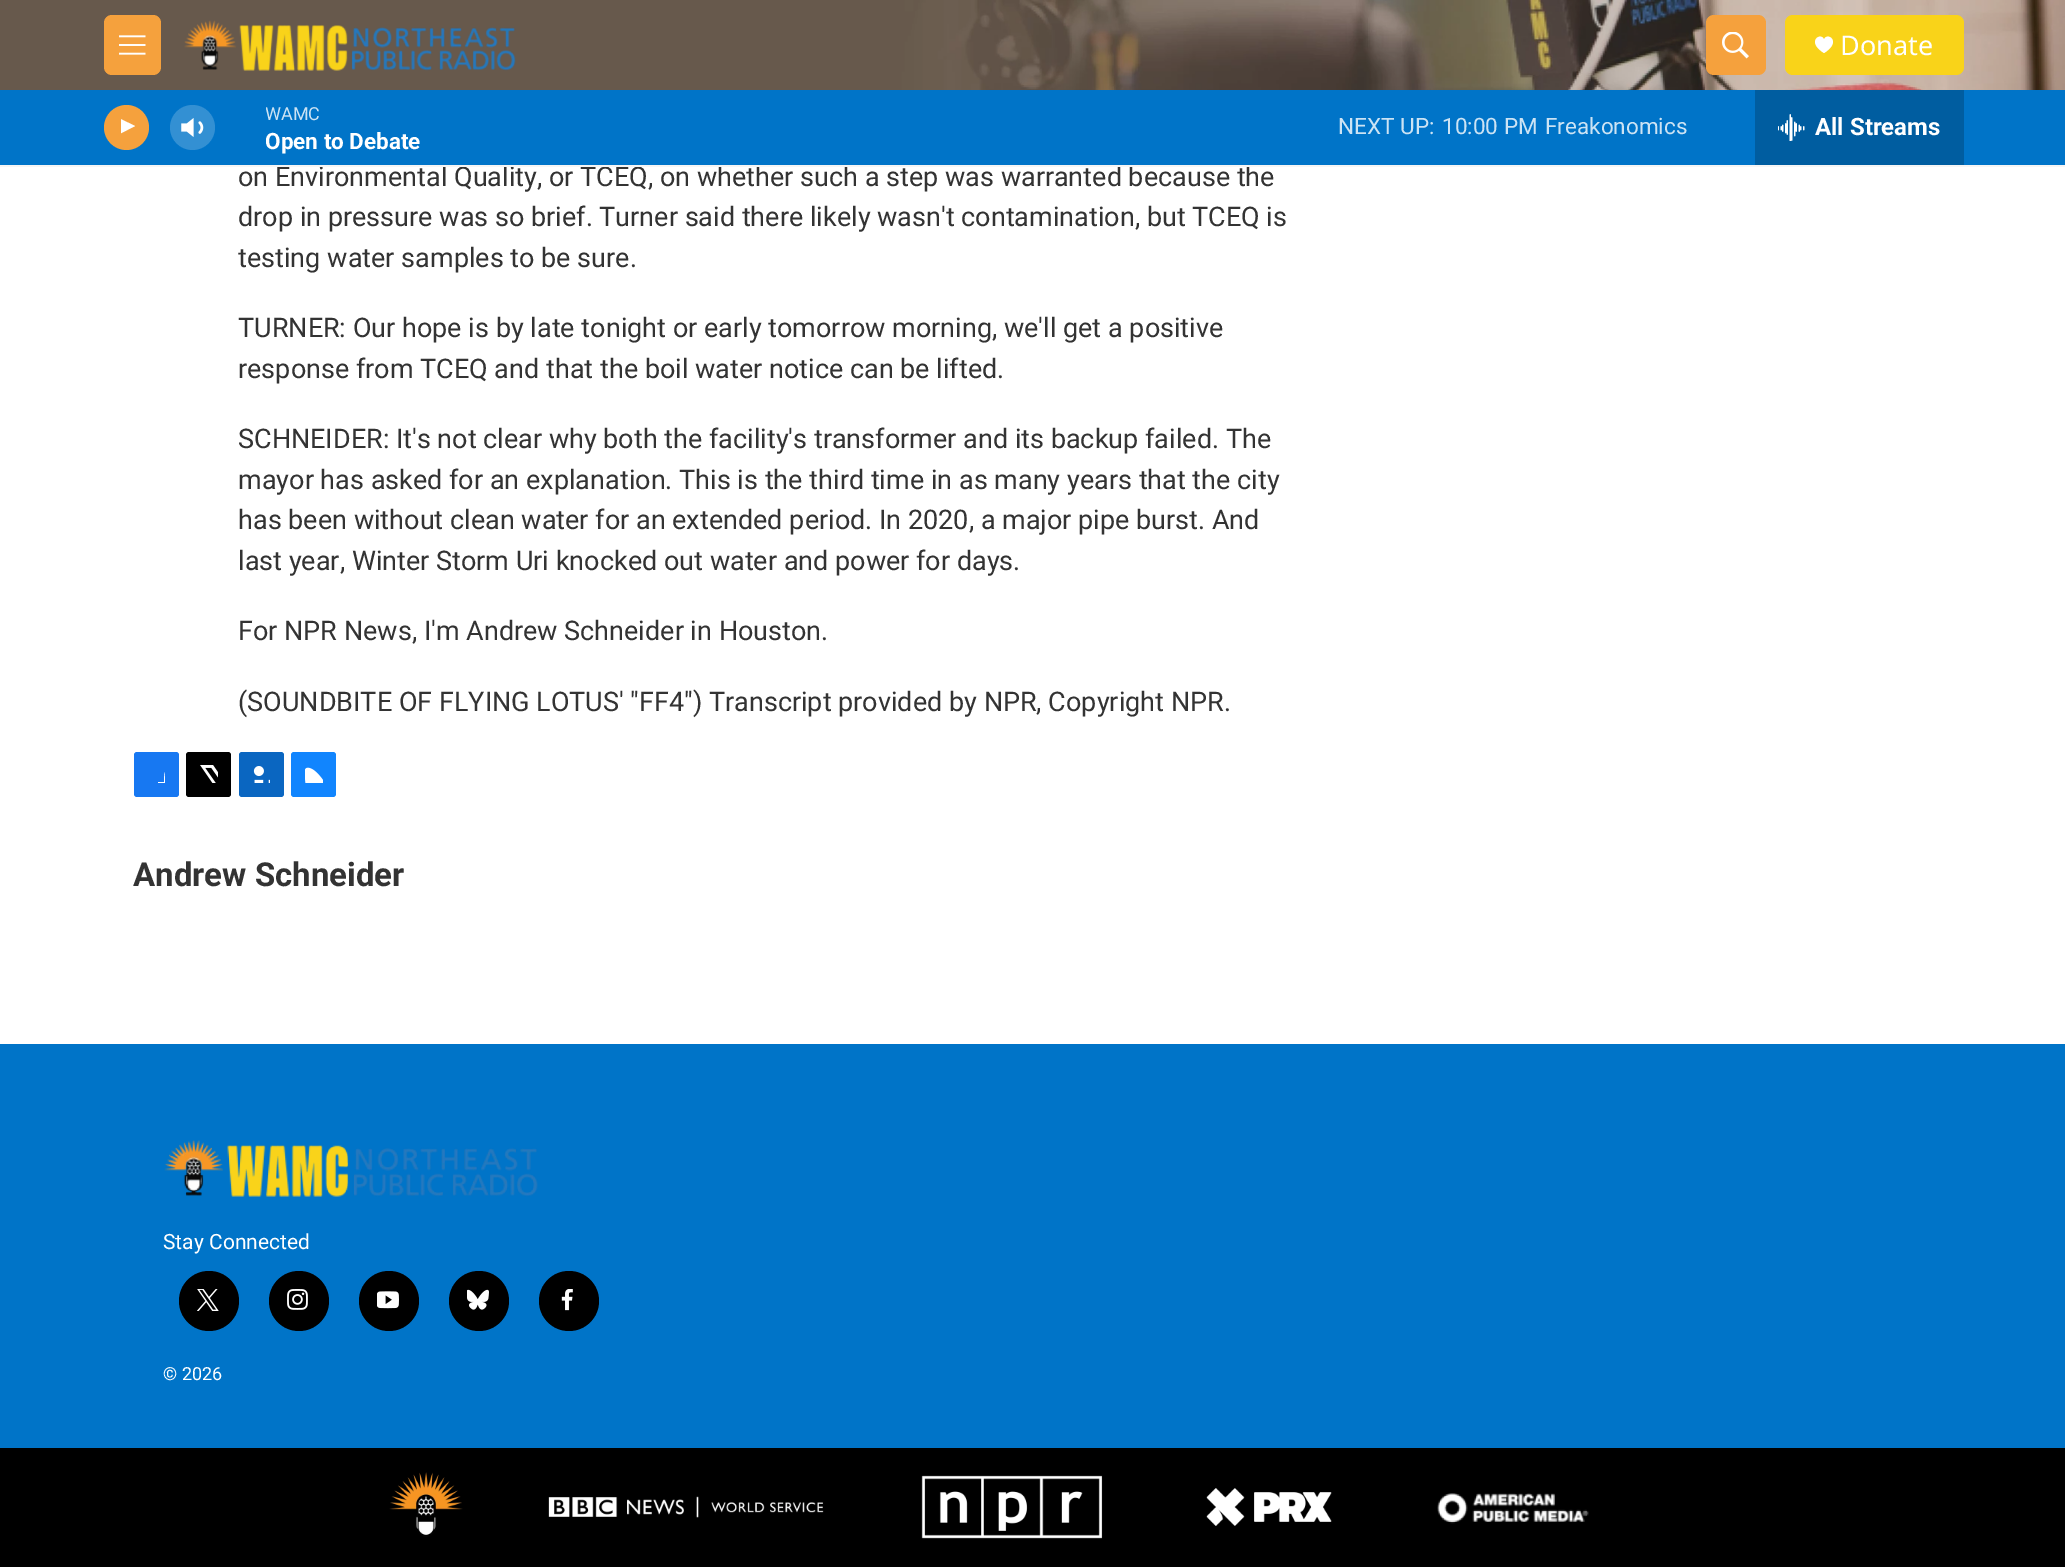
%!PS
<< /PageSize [2065 1567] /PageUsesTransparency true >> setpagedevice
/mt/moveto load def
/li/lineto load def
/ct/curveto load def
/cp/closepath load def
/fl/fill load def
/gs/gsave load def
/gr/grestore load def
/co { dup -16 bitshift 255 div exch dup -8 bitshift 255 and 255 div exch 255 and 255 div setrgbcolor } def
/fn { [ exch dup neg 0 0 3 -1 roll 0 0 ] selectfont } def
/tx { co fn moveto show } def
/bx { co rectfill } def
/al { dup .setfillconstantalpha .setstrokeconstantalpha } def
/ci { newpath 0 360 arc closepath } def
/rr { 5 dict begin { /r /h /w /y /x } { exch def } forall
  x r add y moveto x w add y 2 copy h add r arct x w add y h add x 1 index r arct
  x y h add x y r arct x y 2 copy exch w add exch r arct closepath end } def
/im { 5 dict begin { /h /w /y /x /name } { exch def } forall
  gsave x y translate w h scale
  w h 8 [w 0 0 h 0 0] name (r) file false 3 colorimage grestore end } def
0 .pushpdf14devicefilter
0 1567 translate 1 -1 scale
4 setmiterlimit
0 0 2065 1567 16#FFFFFF bx
(media/1.raw) 0 0 2065 90 im
16#F5A13D co
104 15 57 60 8 rr fl
(media/2.raw) 119 35 27 20 im
(media/3.raw) 184 20 332 51 im
1706 15 60 60 8 rr fl
(media/4.raw) 1722 32 27 27 im
16#F9D319 co
1785 15 179 60 8 rr fl
16#FFFFFF co
1824 39.5 mt 1821 31.5 1805.5 41.5 1824 53 ct 1842.5 41.5 1827 31.5 1824 39.5 ct cp fl
0 90 2065 75 16#0074C8 bx
16#F5A13D co
126.5 127.5 22.5 ci fl
gs
121 117 17 23 rectclip
16#FFFFFF co
120.5 119 mt 135 126 li 120.5 133.5 li cp fl
gr
(media/5.raw) 181 118 23 19 im
0.2 al
16#FFFFFF co
192.5 127.5 22.5 ci fl
1 al
1755 90 209 75 16#005DA0 bx
(media/6.raw) 1778 114 27 27 im
16#1778F2 co
134 752 45 45 3 rr fl
gs
147 765 18 18 rectclip
16#FFFFFF co
172 797 mt 164 797 li 164 789 li 158 789 li 158 782 li 164 782 li 164 769.5 166 764 179 766 ct 179 773 li 170.5 773 172 774.5 172 782 ct 179 782 li 178 789 li 172 789 li cp fl
gr
16#000000 co
186 752 45 45 3 rr fl
(media/7.raw) 200 765 18 18 im
16#0A66C1 co
239 752 45 45 3 rr fl
(media/8.raw) 253 766 17 17 im
16#1185FE co
291 752 45 45 3 rr fl
(media/9.raw) 305 767 18 16 im
0 1044 2065 404 16#0074C8 bx
(media/10.raw) 164 1140 374 57 im
16#000000 co
209 1301 30 ci fl
(media/11.raw) 197 1289 22 22 im
299 1301 30 ci fl
(media/12.raw) 287 1289 21 21 im
389 1301 30 ci fl
(media/13.raw) 377 1291 22 18 im
479 1301 30 ci fl
(media/14.raw) 467 1289 22 21 im
569 1301 30 ci fl
(media/15.raw) 561 1289 12 22 im
0 1448 2065 119 16#000000 bx
(media/16.raw) 389 1472 74 65 im
(media/17.raw) 548 1496 276 22 im
(media/18.raw) 921 1475 182 64 im
(media/19.raw) 1206 1488 126 38 im
(media/20.raw) 1437 1493 152 31 im
(Donate) 1840 55 /NotoSans-Regular 27 16#FFFFFF tx
gs
266 101 154 27 rectclip
(WAMC) 265 120 /Roboto-Regular 18 16#CCE3F4 tx
gr
gs
266 128 154 27 rectclip
(Open to Debate) 265 149 /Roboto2-Bold 22.5 16#FFFFFF tx
gr
(NEXT UP:) 1338 134 /Roboto-Regular 22.5 16#CCE3F4 tx
(10:00 PM) 1442 134 /Roboto-Regular 22.5 16#CCE3F4 tx
(Freakonomics) 1545 134 /Roboto-Regular 22.5 16#CCE3F4 tx
(All Streams) 1815 135 /Roboto2-Bold 24 16#FFFFFF tx
(on Environmental Quality, or TCEQ, on whether such a step was warranted because the) 238 186 /Roboto-Regular 27 16#333333 tx
0 165 2065 2 16#F5F5F5 bx
(drop in pressure was so brief. Turner said there likely wasn't contamination, but TCEQ is) 238 226 /Roboto-Regular 27 16#333333 tx
(testing water samples to be sure.) 238 267 /Roboto-Regular 27 16#333333 tx
(TURNER: Our hope is by late tonight or early tomorrow morning, we'll get a positive) 238 337 /Roboto-Regular 27 16#333333 tx
(response from TCEQ and that the boil water notice can be lifted.) 238 378 /Roboto-Regular 27 16#333333 tx
(SCHNEIDER: It's not clear why both the facility's transformer and its backup failed. The) 238 448 /Roboto-Regular 27 16#333333 tx
(mayor has asked for an explanation. This is the third time in as many years that the city) 238 489 /Roboto-Regular 27 16#333333 tx
(has been without clean water for an extended period. In 2020, a major pipe burst. And) 238 529 /Roboto-Regular 27 16#333333 tx
(last year, Winter Storm Uri knocked out water and power for days.) 238 570 /Roboto-Regular 27 16#333333 tx
(For NPR News, I'm Andrew Schneider in Houston.) 238 640 /Roboto-Regular 27 16#333333 tx
(\(SOUNDBITE OF FLYING LOTUS' "FF4"\) Transcript provided by NPR, Copyright NPR.) 238 711 /Roboto-Regular 27 16#333333 tx
(Andrew Schneider) 133 886 /Roboto-Bold 33 16#333333 tx
(Stay Connected) 163 1249 /Roboto-Regular 21 16#FFFFFF tx
(© 2026) 163 1380 /Roboto-Regular 18 16#FFFFFF tx
.poppdf14devicefilter showpage
